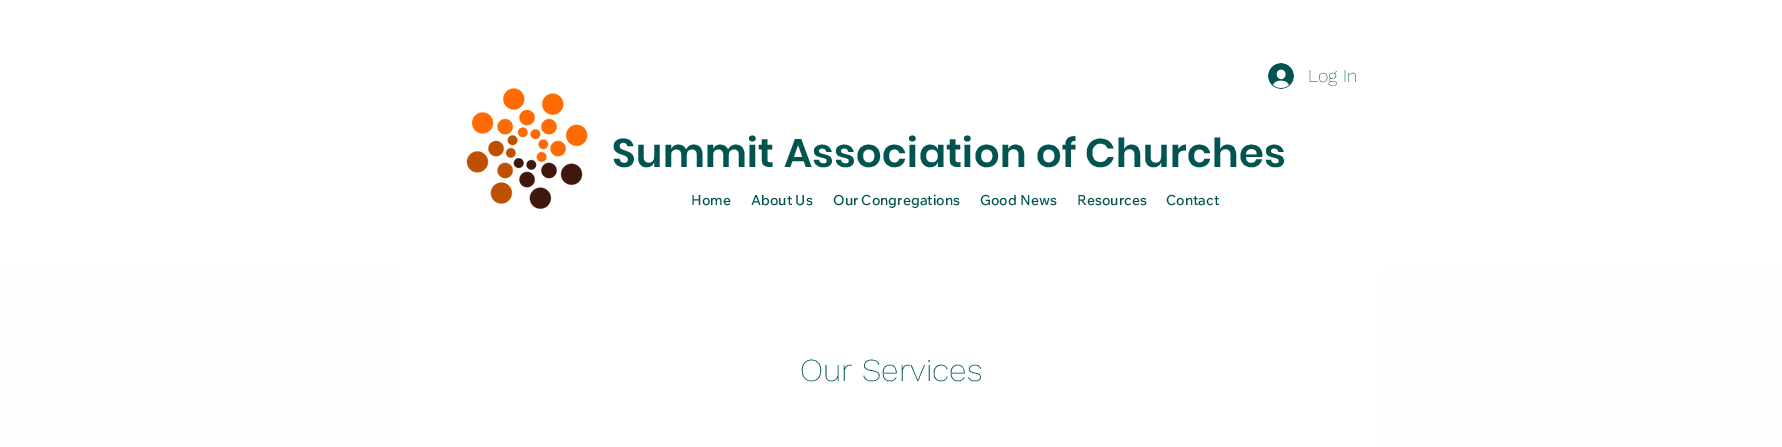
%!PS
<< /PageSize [1782 447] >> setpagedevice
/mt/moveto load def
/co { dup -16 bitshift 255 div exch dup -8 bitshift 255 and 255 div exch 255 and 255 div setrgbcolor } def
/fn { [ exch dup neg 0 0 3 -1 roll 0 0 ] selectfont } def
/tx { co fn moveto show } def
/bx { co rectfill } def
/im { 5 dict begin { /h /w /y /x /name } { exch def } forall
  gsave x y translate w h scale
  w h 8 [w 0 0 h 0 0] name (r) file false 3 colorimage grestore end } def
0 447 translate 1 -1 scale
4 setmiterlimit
0 0 1782 447 16#FFFEFC bx
0 0 1782 270 16#FFFFFF bx
(media/1.raw) 1268 63 26 26 im
(media/2.raw) 466 88 122 121 im
401 270 980 177 16#FFFFFF bx
(Log In) 1308 82 /WorkSans-ExtraLight 18 16#015450 tx
/Poppins-SemiBold 40 fn
612 167 mt .4 0 (Summit Association of Churches) ashow
(Home) 691 205 /WixMadeforText-Medium 14 16#015450 tx
(About Us) 751 205 /WixMadeforText-Medium 14 16#015450 tx
(Our Congregations) 833 205 /WixMadeforText-Medium 14 16#015450 tx
(Good News) 980 205 /WixMadeforText-Medium 14 16#015450 tx
(Resources) 1077 205 /WixMadeforText-Medium 14 16#015450 tx
(Contact) 1166 205 /WixMadeforText-Medium 14 16#015450 tx
(Our Services) 800 381 /WorkSans-ExtraLight 32 16#015450 tx
showpage
